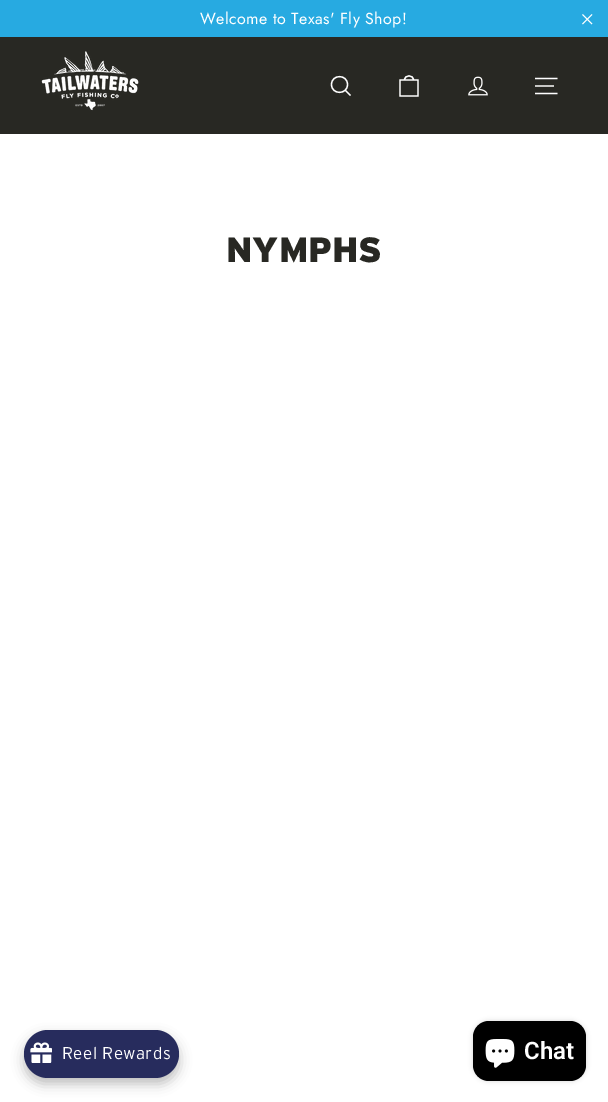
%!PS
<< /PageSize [608 1102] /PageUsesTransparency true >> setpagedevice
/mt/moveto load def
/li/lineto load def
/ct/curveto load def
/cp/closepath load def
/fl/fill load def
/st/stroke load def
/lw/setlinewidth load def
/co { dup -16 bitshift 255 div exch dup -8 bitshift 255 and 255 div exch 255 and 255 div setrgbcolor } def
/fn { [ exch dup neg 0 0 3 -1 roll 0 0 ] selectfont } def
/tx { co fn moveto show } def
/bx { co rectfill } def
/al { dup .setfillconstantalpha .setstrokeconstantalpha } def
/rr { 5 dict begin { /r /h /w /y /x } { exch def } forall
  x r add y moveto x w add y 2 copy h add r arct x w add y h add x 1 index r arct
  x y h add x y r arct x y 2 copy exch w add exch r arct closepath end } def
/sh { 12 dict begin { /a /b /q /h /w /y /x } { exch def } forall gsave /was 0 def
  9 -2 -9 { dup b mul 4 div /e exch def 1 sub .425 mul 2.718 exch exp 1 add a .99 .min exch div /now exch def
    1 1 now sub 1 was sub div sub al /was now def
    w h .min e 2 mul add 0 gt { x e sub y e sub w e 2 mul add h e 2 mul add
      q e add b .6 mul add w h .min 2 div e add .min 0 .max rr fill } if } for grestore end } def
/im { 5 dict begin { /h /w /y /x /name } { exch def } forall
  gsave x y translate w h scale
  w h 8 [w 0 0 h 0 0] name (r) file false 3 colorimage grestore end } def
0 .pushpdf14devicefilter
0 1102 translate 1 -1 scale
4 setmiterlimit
0 0 608 1102 16#FFFFFF bx
0 0 608 37 16#27AAE1 bx
16#FFFFFF co
582.5 14.5 mt 592 24 li 592 14.5 mt 582.5 24 li st
0 37 608 97 16#282823 bx
(media/1.raw) 41 51 98 60 im
16#FFFFFF co
1.3 lw
347.5 84.5 mt 347.5 95 331.5 95 331.5 84.5 ct 331.5 74 347.5 74 347.5 84.5 ct cp 350.5 95.5 mt 345.5 90.5 li st
400 80 mt 418 80 li 418 96 li 400 96 li cp 404.5 80 mt 404.5 74.5 413.5 74.5 413.5 80 ct st
(media/2.raw) 468 76 20 20 im
535 78.5 mt 557.5 78.5 li 535 86 mt 554 86 li 535 93.5 mt 557.5 93.5 li st
16#000000 co
24 1036 155 48 24 6 .25 sh
16#272C5D co
24 1030 155 48 24 rr fl
(media/3.raw) 30 1042 22 21 im
16#000000 co
473 1021 113 60 16 2.5 .15 sh
473 1021 113 60 16 rr fl
(media/4.raw) 485 1039 30 29 im
/Jost-Regular 16 fn
16#FFFFFF co
200 24 mt .4 0 (Welcome to Texas' Fly Shop!) ashow
(NYMPHS) 226 262 /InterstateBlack-Black 35 16#282823 tx
/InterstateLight-Light 17 fn
16#FFFFFF co
62 1059 mt .4 0 (Reel Rewards) ashow
(Chat) 524 1059 /Roboto-SemiBold 24 16#FFFFFF tx
.poppdf14devicefilter showpage
